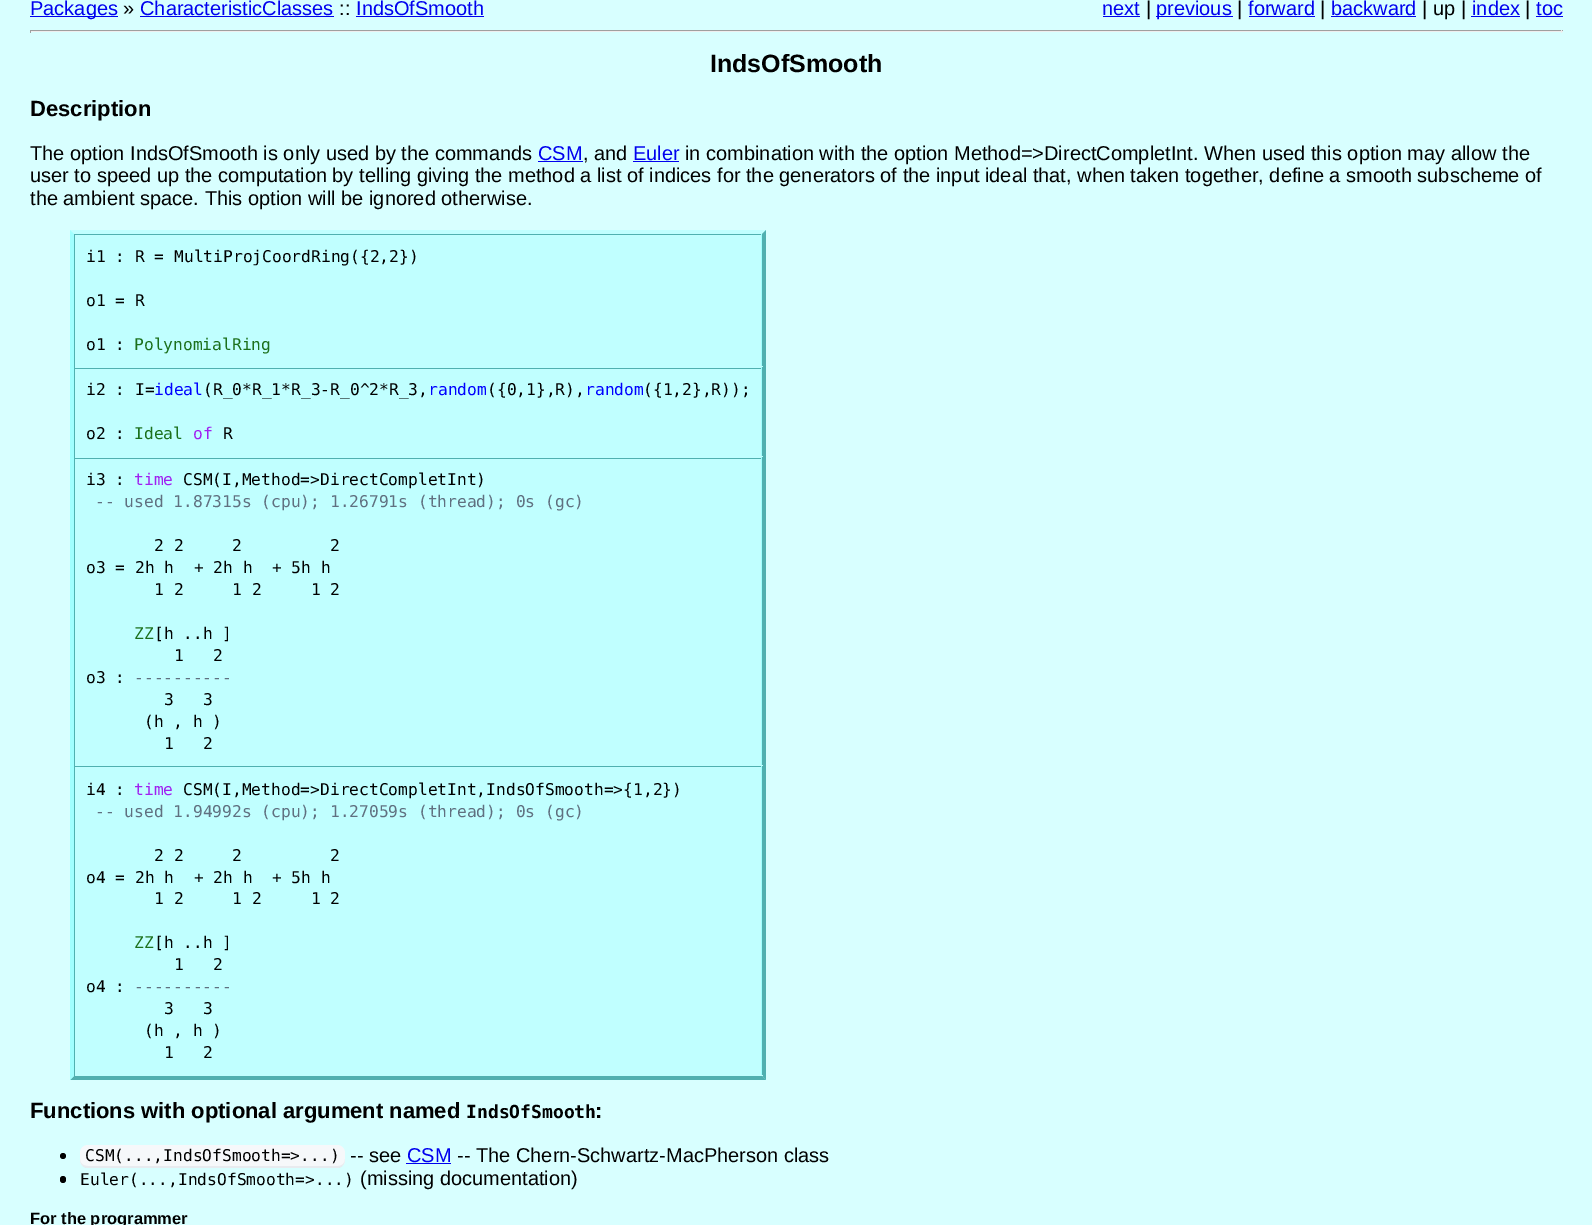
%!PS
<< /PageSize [1592 1225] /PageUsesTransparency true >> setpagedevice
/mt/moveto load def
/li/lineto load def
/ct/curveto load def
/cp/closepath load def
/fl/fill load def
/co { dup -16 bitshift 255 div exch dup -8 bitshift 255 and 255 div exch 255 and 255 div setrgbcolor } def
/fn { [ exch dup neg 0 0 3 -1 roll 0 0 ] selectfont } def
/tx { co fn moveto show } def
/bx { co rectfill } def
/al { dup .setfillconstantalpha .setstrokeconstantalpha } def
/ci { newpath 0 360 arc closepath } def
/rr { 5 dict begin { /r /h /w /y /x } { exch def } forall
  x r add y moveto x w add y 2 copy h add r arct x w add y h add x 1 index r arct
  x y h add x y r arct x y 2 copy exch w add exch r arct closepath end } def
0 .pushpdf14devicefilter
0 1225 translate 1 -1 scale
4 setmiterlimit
0 0 1592 1225 16#D8FFFF bx
30 16 88 1 16#0000EE bx
140 16 194 1 16#0000EE bx
356 16 128 1 16#0000EE bx
1103 16 37 1 16#0000EE bx
1156 16 77 1 16#0000EE bx
1249 16 66 1 16#0000EE bx
1331 16 85 1 16#0000EE bx
1471 16 49 1 16#0000EE bx
1536 16 27 1 16#0000EE bx
30 30 1533 1 16#9F9F9F bx
1561 30 1 3 16#EEEEEE bx
30 31 1533 1 16#EEEEEE bx
30 30 1 3 16#9F9F9F bx
538 161 45 1 16#0000EE bx
633 161 46 1 16#0000EE bx
70 230 696 850 16#C0FFFF bx
16#50B0B0 co
766 230 mt 766 1080 li 762 1076 li 762 234 li cp fl
766 1080 mt 70 1080 li 74 1076 li 762 1076 li cp fl
16#A0FFFF co
70 1080 mt 70 230 li 74 234 li 74 1076 li cp fl
74 234 689 1 16#50B0B0 bx
761 234 1 134 16#A0FFFF bx
761 366 2 1 16#C0FFFF bx
74 234 1 134 16#50B0B0 bx
74 368 689 1 16#50B0B0 bx
761 368 1 90 16#A0FFFF bx
761 456 2 1 16#C0FFFF bx
74 368 1 90 16#50B0B0 bx
74 458 689 1 16#50B0B0 bx
761 458 1 308 16#A0FFFF bx
761 765 2 1 16#C0FFFF bx
74 458 1 308 16#50B0B0 bx
74 766 689 1 16#50B0B0 bx
761 766 1 310 16#A0FFFF bx
761 1075 2 1 16#C0FFFF bx
74 766 1 310 16#50B0B0 bx
16#000000 co
63 1156 3 ci fl
16#F6F8FA co
80 1145 265 23 8 rr fl
0.2 al
16#AFB8C1 co
80 1159 mt 80 1163 82 1167 86 1168 ct 339 1168 li 343 1167 345 1163 345 1159 ct 345 1163 342 1166 338 1166 ct 88 1166 li 83 1166 80 1163 80 1159 ct cp fl
1 al
406 1163 45 1 16#0000EE bx
16#000000 co
60 1176 6 7 3 rr fl
(Packages) 30 15 /LiberationSans-Regular 20 16#0000EE tx
(») 123 15 /LiberationSans-Regular 20 16#000000 tx
(CharacteristicClasses) 140 15 /LiberationSans-Regular 20 16#0000EE tx
(::) 339 15 /LiberationSans-Regular 20 16#000000 tx
(IndsOfSmooth) 356 15 /LiberationSans-Regular 20 16#0000EE tx
(next) 1102 15 /LiberationSans-Regular 20 16#0000EE tx
(|) 1146 15 /LiberationSans-Regular 20 16#000000 tx
(previous) 1156 15 /LiberationSans-Regular 20 16#0000EE tx
(|) 1237 15 /LiberationSans-Regular 20 16#000000 tx
(forward) 1248 15 /LiberationSans-Regular 20 16#0000EE tx
(|) 1320 15 /LiberationSans-Regular 20 16#000000 tx
(backward) 1331 15 /LiberationSans-Regular 20 16#0000EE tx
(| up |) 1422 15 /LiberationSans-Regular 20 16#000000 tx
(index) 1472 15 /LiberationSans-Regular 20 16#0000EE tx
(|) 1525 15 /LiberationSans-Regular 20 16#000000 tx
(toc) 1536 15 /LiberationSans-Regular 20 16#0000EE tx
(IndsOfSmooth) 710 72 /LiberationSans-Bold 25 16#000000 tx
(Description) 30 116 /LiberationSans-Bold 22 16#000000 tx
(The option IndsOfSmooth is only used by the commands) 30 160 /LiberationSans-Regular 20 16#000000 tx
(CSM) 538 160 /LiberationSans-Regular 20 16#0000EE tx
(, and) 583 160 /LiberationSans-Regular 20 16#000000 tx
(Euler) 633 160 /LiberationSans-Regular 20 16#0000EE tx
(in combination with the option Method=>DirectCompletInt. When used this option may allow the) 685 160 /LiberationSans-Regular 20 16#000000 tx
(user to speed up the computation by telling giving the method a list of indices for the generators of the input ideal that, when taken together, define a smooth subscheme of) 30 182 /LiberationSans-Regular 20 16#000000 tx
(the ambient space. This option will be ignored otherwise.) 30 205 /LiberationSans-Regular 20 16#000000 tx
(i1 : R = MultiProjCoordRing\({2,2}\)) 86 262 /DejaVuSansMono-Regular 16.25 16#000000 tx
(o1 = R) 86 306 /DejaVuSansMono-Regular 16.25 16#000000 tx
(o1 :) 86 350 /DejaVuSansMono-Regular 16.25 16#000000 tx
(PolynomialRing) 134 350 /DejaVuSansMono-Regular 16.25 16#1C701C tx
(i2 : I=) 86 395 /DejaVuSansMono-Regular 16.25 16#000000 tx
(ideal) 154 395 /DejaVuSansMono-Regular 16.25 16#0000FF tx
(\(R_0*R_1*R_3-R_0^2*R_3,) 203 395 /DejaVuSansMono-Regular 16.25 16#000000 tx
(random) 428 395 /DejaVuSansMono-Regular 16.25 16#0000FF tx
(\({0,1},R\),) 487 395 /DejaVuSansMono-Regular 16.25 16#000000 tx
(random) 585 395 /DejaVuSansMono-Regular 16.25 16#0000FF tx
(\({1,2},R\)\);) 643 395 /DejaVuSansMono-Regular 16.25 16#000000 tx
(o2 :) 86 439 /DejaVuSansMono-Regular 16.25 16#000000 tx
(Ideal) 134 439 /DejaVuSansMono-Regular 16.25 16#1C701C tx
(of) 193 439 /DejaVuSansMono-Regular 16.25 16#A020F0 tx
(R) 223 439 /DejaVuSansMono-Regular 16.25 16#000000 tx
(i3 :) 86 485 /DejaVuSansMono-Regular 16.25 16#000000 tx
(time) 134 485 /DejaVuSansMono-Regular 16.25 16#A020F0 tx
(CSM\(I,Method=>DirectCompletInt\)) 183 485 /DejaVuSansMono-Regular 16.25 16#000000 tx
(-- used 1.87315s \(cpu\); 1.26791s \(thread\); 0s \(gc\)) 95 507 /DejaVuSansMono-Regular 16.25 16#607080 tx
(2 2     2         2) 154 551 /DejaVuSansMono-Regular 16.25 16#000000 tx
(o3 = 2h h  + 2h h  + 5h h) 86 573 /DejaVuSansMono-Regular 16.25 16#000000 tx
(1 2     1 2     1 2) 154 595 /DejaVuSansMono-Regular 16.25 16#000000 tx
(ZZ) 134 639 /DejaVuSansMono-Regular 16.25 16#1C701C tx
([h ..h ]) 154 639 /DejaVuSansMono-Regular 16.25 16#000000 tx
(1   2) 174 661 /DejaVuSansMono-Regular 16.25 16#000000 tx
(o3 :) 86 683 /DejaVuSansMono-Regular 16.25 16#000000 tx
(----------) 134 683 /DejaVuSansMono-Regular 16.25 16#607080 tx
(3   3) 164 705 /DejaVuSansMono-Regular 16.25 16#000000 tx
(\(h , h \)) 144 727 /DejaVuSansMono-Regular 16.25 16#000000 tx
(1   2) 164 749 /DejaVuSansMono-Regular 16.25 16#000000 tx
(i4 :) 86 795 /DejaVuSansMono-Regular 16.25 16#000000 tx
(time) 134 795 /DejaVuSansMono-Regular 16.25 16#A020F0 tx
(CSM\(I,Method=>DirectCompletInt,IndsOfSmooth=>{1,2}\)) 183 795 /DejaVuSansMono-Regular 16.25 16#000000 tx
(-- used 1.94992s \(cpu\); 1.27059s \(thread\); 0s \(gc\)) 95 817 /DejaVuSansMono-Regular 16.25 16#607080 tx
(2 2     2         2) 154 861 /DejaVuSansMono-Regular 16.25 16#000000 tx
(o4 = 2h h  + 2h h  + 5h h) 86 883 /DejaVuSansMono-Regular 16.25 16#000000 tx
(1 2     1 2     1 2) 154 904 /DejaVuSansMono-Regular 16.25 16#000000 tx
(ZZ) 134 948 /DejaVuSansMono-Regular 16.25 16#1C701C tx
([h ..h ]) 154 948 /DejaVuSansMono-Regular 16.25 16#000000 tx
(1   2) 174 970 /DejaVuSansMono-Regular 16.25 16#000000 tx
(o4 :) 86 992 /DejaVuSansMono-Regular 16.25 16#000000 tx
(----------) 134 992 /DejaVuSansMono-Regular 16.25 16#607080 tx
(3   3) 164 1014 /DejaVuSansMono-Regular 16.25 16#000000 tx
(\(h , h \)) 144 1036 /DejaVuSansMono-Regular 16.25 16#000000 tx
(1   2) 164 1058 /DejaVuSansMono-Regular 16.25 16#000000 tx
(Functions with optional argument named) 30 1118 /LiberationSans-Bold 22 16#000000 tx
(IndsOfSmooth) 466 1118 /DejaVuSansMono-Bold 18 16#000000 tx
(:) 595 1118 /LiberationSans-Bold 22 16#000000 tx
(CSM\(...,IndsOfSmooth=>...\)) 85 1161 /DejaVuSansMono-Regular 16.25 16#000000 tx
(-- see) 350 1162 /LiberationSans-Regular 20 16#000000 tx
(CSM) 407 1162 /LiberationSans-Regular 20 16#0000EE tx
(-- The Chern-Schwartz-MacPherson class) 457 1162 /LiberationSans-Regular 20 16#000000 tx
(Euler\(...,IndsOfSmooth=>...\)) 80 1185 /DejaVuSansMono-Regular 16.25 16#000000 tx
(\(missing documentation\)) 360 1185 /LiberationSans-Regular 20 16#000000 tx
(For the programmer) 30 1224 /LiberationSans-Bold 16.5 16#000000 tx
.poppdf14devicefilter showpage
